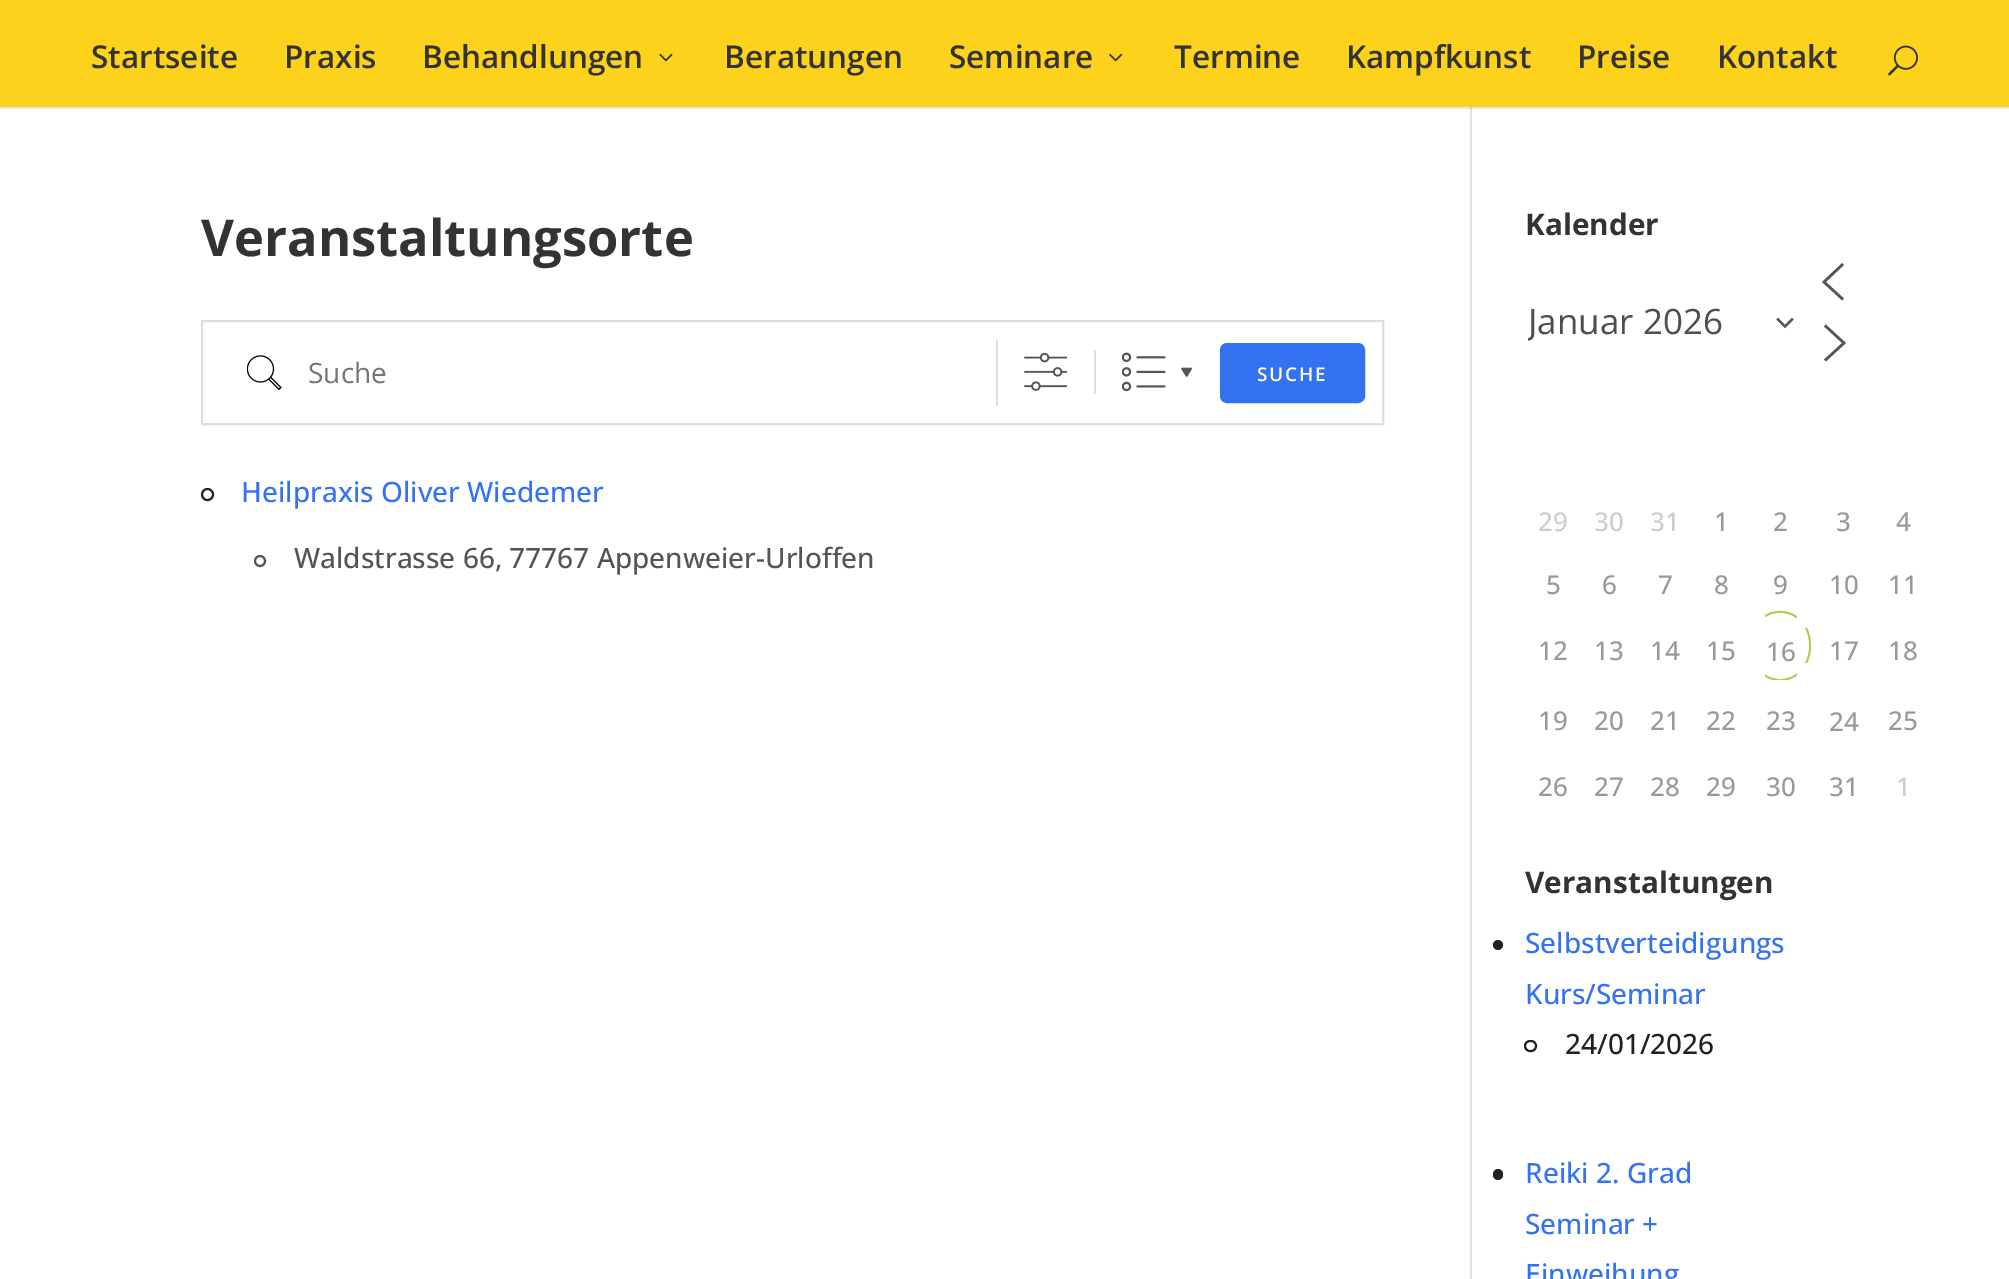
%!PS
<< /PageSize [2009 1279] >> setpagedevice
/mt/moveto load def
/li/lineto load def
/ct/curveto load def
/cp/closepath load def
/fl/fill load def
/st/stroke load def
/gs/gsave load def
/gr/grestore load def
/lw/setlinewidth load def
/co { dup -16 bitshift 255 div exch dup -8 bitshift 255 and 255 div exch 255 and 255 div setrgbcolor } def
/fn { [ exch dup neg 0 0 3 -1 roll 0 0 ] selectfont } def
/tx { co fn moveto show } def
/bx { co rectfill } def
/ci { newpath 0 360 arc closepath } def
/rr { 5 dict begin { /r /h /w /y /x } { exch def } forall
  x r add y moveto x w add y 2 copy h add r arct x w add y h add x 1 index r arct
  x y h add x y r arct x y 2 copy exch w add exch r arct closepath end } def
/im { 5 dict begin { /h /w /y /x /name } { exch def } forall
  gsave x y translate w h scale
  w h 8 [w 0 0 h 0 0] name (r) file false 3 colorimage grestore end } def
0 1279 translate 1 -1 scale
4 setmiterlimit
0 0 2009 1279 16#FFFFFF bx
0 107 2009 2 16#E6E6E6 bx
1470 105 2 1174 16#E2E2E2 bx
0 0 2009 107 16#FCD21D bx
(media/1.raw) 659 53 14 9 im
(media/2.raw) 1109 53 14 9 im
(media/3.raw) 1888 45 30 31 im
1470 107 2 2 16#CBCBCB bx
16#DEDEDE co
2 lw
202 321 1181 103 rectstroke
996 340 2 66 16#DEDEDE bx
(media/4.raw) 247 355 35 35 im
(media/5.raw) 1024 352 44 39 im
1094 350 2 44 16#DEDEDE bx
(media/6.raw) 1181 367 11 10 im
(media/7.raw) 1122 352 44 40 im
16#3372F0 co
1221 344 143 58 6 rr gs fl gr
st
16#212121 co
207.5 494.5 5.5 ci st
16#545454 co
260 561 5 ci st
16#555555 co
2.3 lw
2 setlinecap
1778 319.5 mt 1785 326.5 li 1792 319.5 li st
2.6 lw
1842 298.5 mt 1824 282 li 1842 265 li st
1826 359.5 mt 1844 343 li 1826 326.5 li st
gs
1749 628 mt 1765 628 li 1765 610.5 li 1796.5 610.5 li 1796.5 628 li 1812 628 li 1812 662.5 li 1796.5 662.5 li 1796.5 680 li 1765 680 li 1765 662.5 li 1749 662.5 li cp clip newpath
16#A8D144 co
1.8 lw
0 setlinecap
1758 621.5 mt 1765 614 1775.5 610 1786 612.5 ct 1821.5 620 1816.5 680 1780 680 ct 1771.5 680 1763.5 676 1758 670 ct st
gr
16#212121 co
1498 945 5 ci fl
2 lw
0 setlinecap
1525 1041 11 10 5 rr st
1493 1169 10 11 5 rr fl
(Startseite) 91 68 /OpenSans-SemiBold 31.5 16#333333 tx
(Praxis) 284 68 /OpenSans-SemiBold 31.5 16#333333 tx
(Behandlungen) 422 68 /OpenSans-SemiBold 31.5 16#333333 tx
(Beratungen) 724 68 /OpenSans-SemiBold 31.5 16#333333 tx
(Seminare) 949 68 /OpenSans-SemiBold 31.5 16#333333 tx
(Termine) 1174 68 /OpenSans-SemiBold 31.5 16#333333 tx
(Kampfkunst) 1346 68 /OpenSans-SemiBold 31.5 16#333333 tx
(Preise) 1577 68 /OpenSans-SemiBold 31.5 16#333333 tx
(Kontakt) 1717 68 /OpenSans-SemiBold 31.5 16#333333 tx
(Veranstaltungsorte) 201 256 /OpenSans-Bold 50.75 16#333333 tx
(Suche) 308 383 /OpenSans-Regular 28 16#757575 tx
/OpenSans-SemiBold 19 fn
16#FFFFFF co
1257 381 mt 1.75 0 (SUCHE) ashow
(Heilpraxis Oliver Wiedemer) 241 502 /OpenSans-Medium 28 16#3372F0 tx
(Waldstrasse 66, 77767 Appenweier-Urloffen) 294 568 /OpenSans-Medium 28 16#545454 tx
(Kalender) 1525 235 /OpenSans-Bold 29.75 16#333333 tx
gs
1528 298 266 47 rectclip
(Januar 2026) 1528 334 /OpenSans-Regular 35 16#4E4E4E tx
gr
(29) 1538 531 /OpenSans-Medium 26 16#CCCCCC tx
(30) 1594 531 /OpenSans-Medium 26 16#CCCCCC tx
(31) 1650 531 /OpenSans-Medium 26 16#CCCCCC tx
(1) 1714 531 /OpenSans-Medium 26 16#999999 tx
(2) 1773 531 /OpenSans-Medium 26 16#999999 tx
(3) 1836 531 /OpenSans-Medium 26 16#999999 tx
(4) 1896 531 /OpenSans-Medium 26 16#999999 tx
(5) 1546 594 /OpenSans-Medium 26 16#999999 tx
(6) 1602 594 /OpenSans-Medium 26 16#999999 tx
(7) 1658 594 /OpenSans-Medium 26 16#999999 tx
(8) 1714 594 /OpenSans-Medium 26 16#999999 tx
(9) 1773 594 /OpenSans-Medium 26 16#999999 tx
(10) 1829 594 /OpenSans-Medium 26 16#999999 tx
(11) 1888 594 /OpenSans-Medium 26 16#999999 tx
(12) 1538 660 /OpenSans-Medium 26 16#999999 tx
(13) 1594 660 /OpenSans-Medium 26 16#999999 tx
(14) 1650 660 /OpenSans-Medium 26 16#999999 tx
(15) 1706 660 /OpenSans-Medium 26 16#999999 tx
(16) 1766 661 /OpenSans-Medium 26 16#999999 tx
(17) 1829 660 /OpenSans-Medium 26 16#999999 tx
(18) 1888 660 /OpenSans-Medium 26 16#999999 tx
(19) 1538 730 /OpenSans-Medium 26 16#999999 tx
(20) 1594 730 /OpenSans-Medium 26 16#999999 tx
(21) 1650 730 /OpenSans-Medium 26 16#999999 tx
(22) 1706 730 /OpenSans-Medium 26 16#999999 tx
(23) 1766 730 /OpenSans-Medium 26 16#999999 tx
(24) 1829 731 /OpenSans-Medium 26 16#999999 tx
(25) 1888 730 /OpenSans-Medium 26 16#999999 tx
(26) 1538 796 /OpenSans-Medium 26 16#999999 tx
(27) 1594 796 /OpenSans-Medium 26 16#999999 tx
(28) 1650 796 /OpenSans-Medium 26 16#999999 tx
(29) 1706 796 /OpenSans-Medium 26 16#999999 tx
(30) 1766 796 /OpenSans-Medium 26 16#999999 tx
(31) 1829 796 /OpenSans-Medium 26 16#999999 tx
(1) 1896 796 /OpenSans-Medium 26 16#CCCCCC tx
(Veranstaltungen) 1525 893 /OpenSans-Bold 29.75 16#333333 tx
(Selbstverteidigungs) 1525 953 /OpenSans-Medium 28 16#3372F0 tx
(Kurs/Seminar) 1525 1004 /OpenSans-Medium 28 16#3372F0 tx
(24/01/2026) 1565 1054 /OpenSans-Medium 28 16#212121 tx
(Reiki 2. Grad) 1525 1183 /OpenSans-Medium 28 16#3372F0 tx
(Seminar +) 1525 1234 /OpenSans-Medium 28 16#3372F0 tx
(Einweihung) 1525 1284 /OpenSans-Medium 28 16#3372F0 tx
showpage
